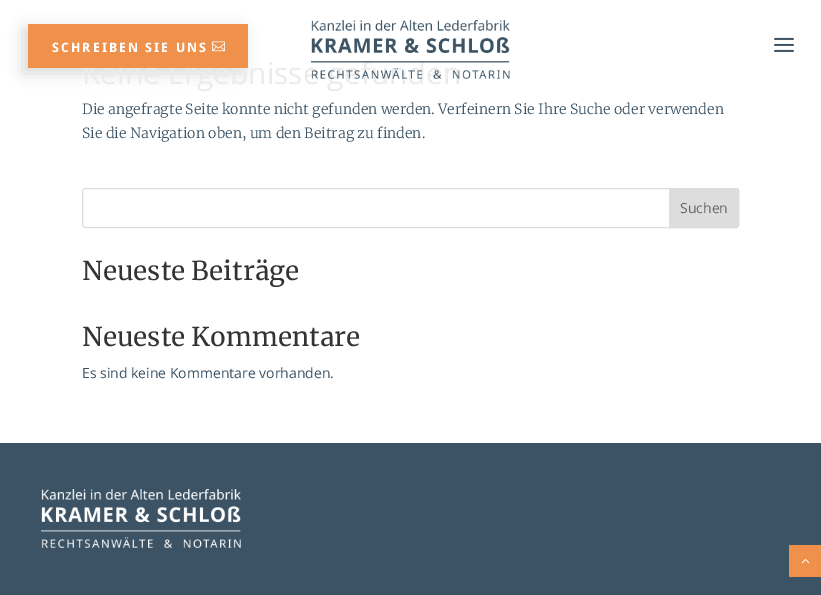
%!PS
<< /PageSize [821 595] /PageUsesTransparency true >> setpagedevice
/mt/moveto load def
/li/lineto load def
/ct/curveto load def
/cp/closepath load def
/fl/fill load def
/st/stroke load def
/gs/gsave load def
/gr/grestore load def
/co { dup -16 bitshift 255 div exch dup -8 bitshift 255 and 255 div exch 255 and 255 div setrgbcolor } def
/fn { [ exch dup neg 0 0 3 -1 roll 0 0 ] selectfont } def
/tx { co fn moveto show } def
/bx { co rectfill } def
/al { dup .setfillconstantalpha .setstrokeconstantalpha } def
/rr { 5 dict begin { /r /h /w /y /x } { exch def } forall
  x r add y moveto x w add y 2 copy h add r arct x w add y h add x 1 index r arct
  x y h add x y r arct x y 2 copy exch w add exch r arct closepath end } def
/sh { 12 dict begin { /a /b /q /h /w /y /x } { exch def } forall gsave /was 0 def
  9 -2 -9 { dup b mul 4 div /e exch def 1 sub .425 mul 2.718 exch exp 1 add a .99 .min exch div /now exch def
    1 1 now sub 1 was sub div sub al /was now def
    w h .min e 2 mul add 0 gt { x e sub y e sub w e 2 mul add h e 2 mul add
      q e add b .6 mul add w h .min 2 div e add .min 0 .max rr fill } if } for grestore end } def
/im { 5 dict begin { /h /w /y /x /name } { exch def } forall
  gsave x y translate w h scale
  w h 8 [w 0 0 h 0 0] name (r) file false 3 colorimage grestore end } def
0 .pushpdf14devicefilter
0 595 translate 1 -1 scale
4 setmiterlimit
0 0 821 595 16#FFFFFF bx
16#000000 co
23 29 220 44 0 7.5 .15 sh
(media/3.raw) 774 37 20 15 im
16#DDDDDD co
82.5 188.5 656 39 2.5 rr st
669.5 188.5 mt 736 188.5 li 737.5 188.5 738.5 189.5 738.5 191 ct 738.5 225 li 738.5 226.5 737.5 227.5 736 227.5 ct 669.5 227.5 li cp gs fl gr
st
0 443 821 152 16#3B5364 bx
(media/4.raw) 41 489 200 59 im
789 545 32 32 16#F0914B bx
(media/5.raw) 801 559 9 5 im
(Keine Ergebnisse gefunden) 82 84 /OpenSans-Regular 30 16#EBEBEB tx
28 24 220 44 16#F0914B bx
(media/1.raw) 212 41 13 11 im
/NotoSansDisplay-Bold 13 fn
16#FFFFFF co
52 52 mt 2.1 0 (SCHREIBEN SIE UNS) ashow
(media/2.raw) 311 20 199 59 im
(Die angefragte Seite konnte nicht gefunden werden. Verfeinern Sie Ihre Suche oder verwenden) 82 114 /Merriweather-Light 14 16#3B5364 tx
(Sie die Navigation oben, um den Beitrag zu finden.) 82 138 /Merriweather-Light 14 16#3B5364 tx
(Suchen) 680 213 /OpenSans-Regular 14 16#666666 tx
(Neueste Beiträge) 82 280 /Merriweather-Regular 26 16#333333 tx
(Neueste Kommentare) 82 346 /Merriweather-Regular 26 16#333333 tx
(Es sind keine Kommentare vorhanden.) 82 378 /OpenSans-Regular 14 16#3B5364 tx
.poppdf14devicefilter showpage
